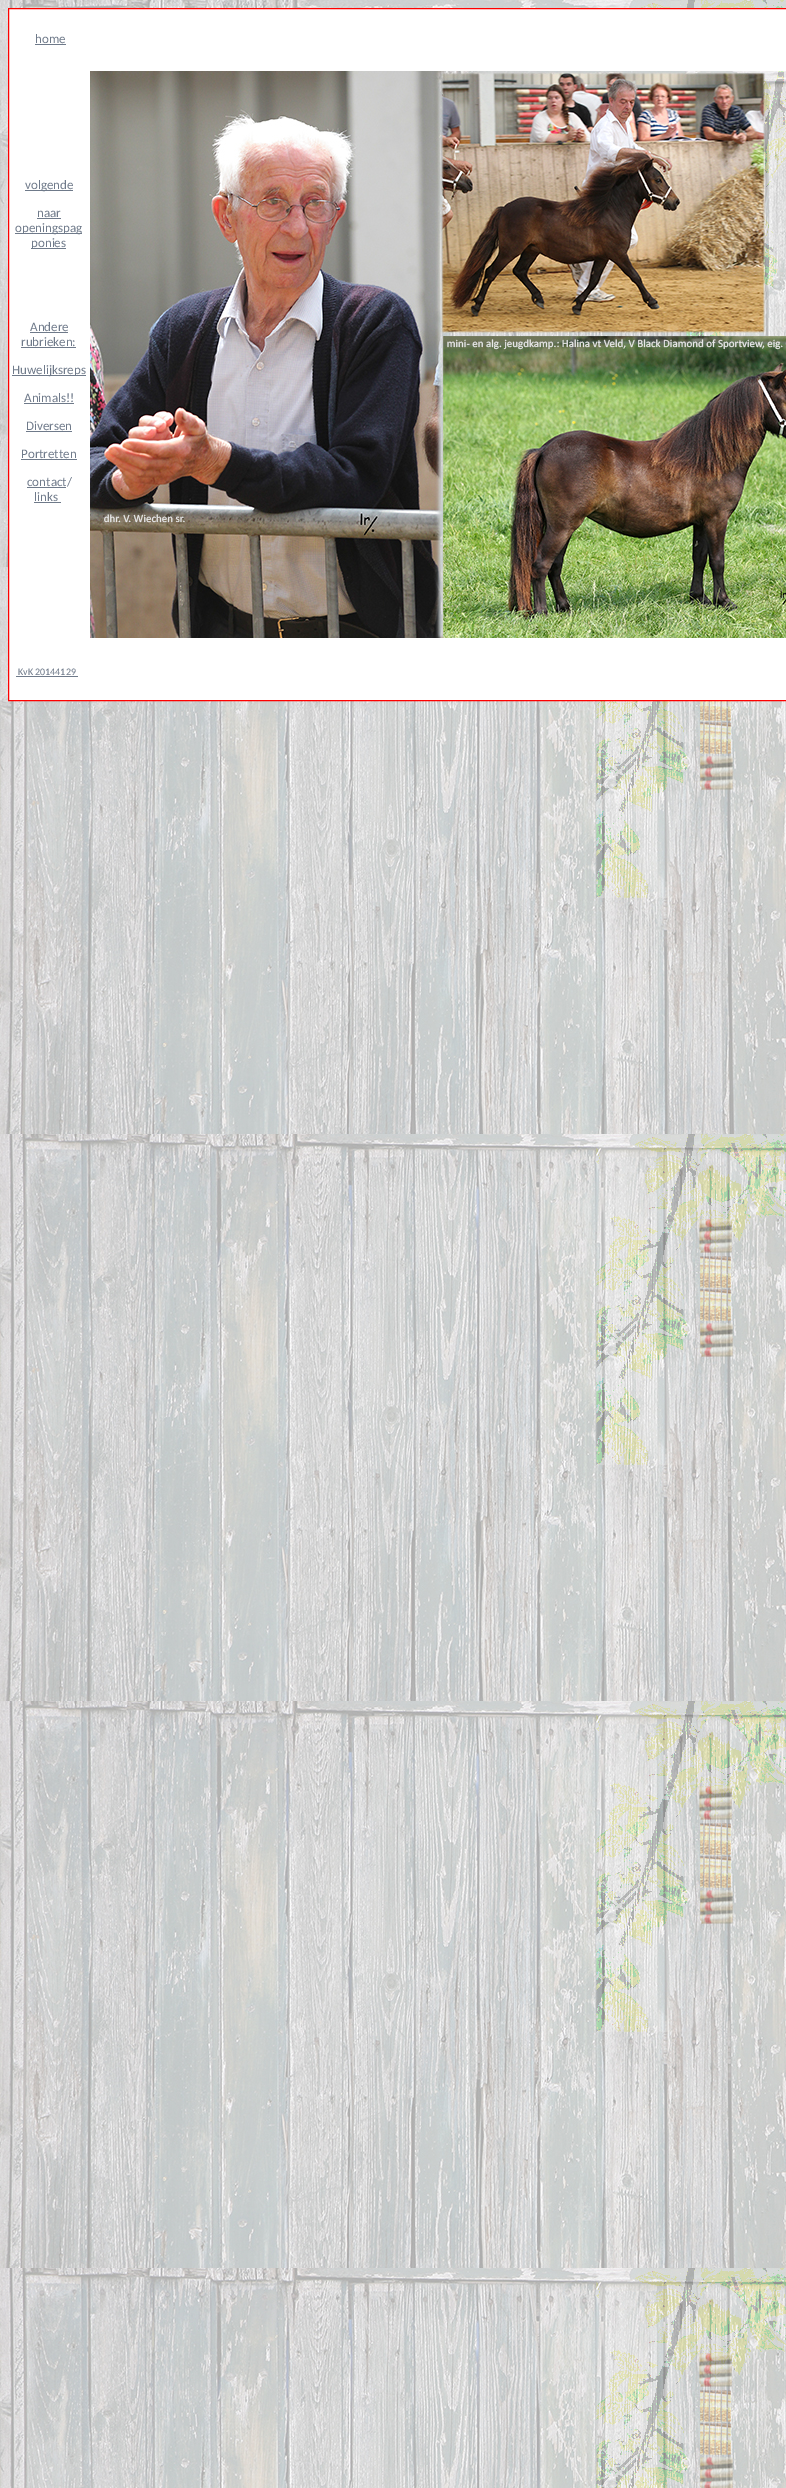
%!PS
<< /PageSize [786 2488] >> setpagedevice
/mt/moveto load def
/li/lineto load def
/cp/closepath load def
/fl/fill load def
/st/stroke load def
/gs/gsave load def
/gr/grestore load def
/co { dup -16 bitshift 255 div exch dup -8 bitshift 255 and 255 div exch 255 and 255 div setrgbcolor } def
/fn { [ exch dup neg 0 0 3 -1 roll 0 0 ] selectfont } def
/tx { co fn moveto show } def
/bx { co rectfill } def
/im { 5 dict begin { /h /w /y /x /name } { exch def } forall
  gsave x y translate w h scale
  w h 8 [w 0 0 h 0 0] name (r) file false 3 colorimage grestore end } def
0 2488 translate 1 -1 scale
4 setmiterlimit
0 0 786 2488 16#FFFFFF bx
(media/1.raw) 0 0 786 2488 im
8.5 8.5 mt 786.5 8.5 li 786.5 700.5 li 8.5 700.5 li cp gs fl gr
16#FF0000 co
st
35 44 31 1 16#6F7A8A bx
25 190 48 1 16#6F7A8A bx
37 218 24 1 16#6F7A8A bx
15 233 67 1 16#6F7A8A bx
31 248 35 1 16#6F7A8A bx
30 332 38 1 16#6F7A8A bx
21 347 55 1 16#6F7A8A bx
12 375 74 1 16#6F7A8A bx
24 403 50 1 16#6F7A8A bx
26 431 46 1 16#6F7A8A bx
21 459 56 1 16#6F7A8A bx
27 487 39 1 16#6F7A8A bx
34 502 27 1 16#6F7A8A bx
(media/2.raw) 90 71 696 567 im
16 676 62 1 16#6F7A8A bx
(home) 35 43 /Carlito-Regular 13 16#6F7A8A tx
(volgende) 25 189 /Carlito-Regular 13 16#6F7A8A tx
(naar) 37 217 /Carlito-Regular 13 16#6F7A8A tx
(openingspag) 15 232 /Carlito-Regular 13 16#6F7A8A tx
(ponies) 31 247 /Carlito-Regular 13 16#6F7A8A tx
(Andere) 30 331 /Carlito-Regular 13 16#6F7A8A tx
(rubrieken:) 21 346 /Carlito-Regular 13 16#6F7A8A tx
(Huwelijksreps) 12 374 /Carlito-Regular 13 16#6F7A8A tx
(Animals!!) 24 402 /Carlito-Regular 13 16#6F7A8A tx
(Diversen) 26 430 /Carlito-Regular 13 16#6F7A8A tx
(Portretten) 21 458 /Carlito-Regular 13 16#6F7A8A tx
(contact/) 27 486 /Carlito-Regular 13 16#6F7A8A tx
(links) 34 501 /Carlito-Regular 13 16#6F7A8A tx
(KvK 20144129) 18 675 /Carlito-Regular 10 16#6F7A8A tx
showpage
